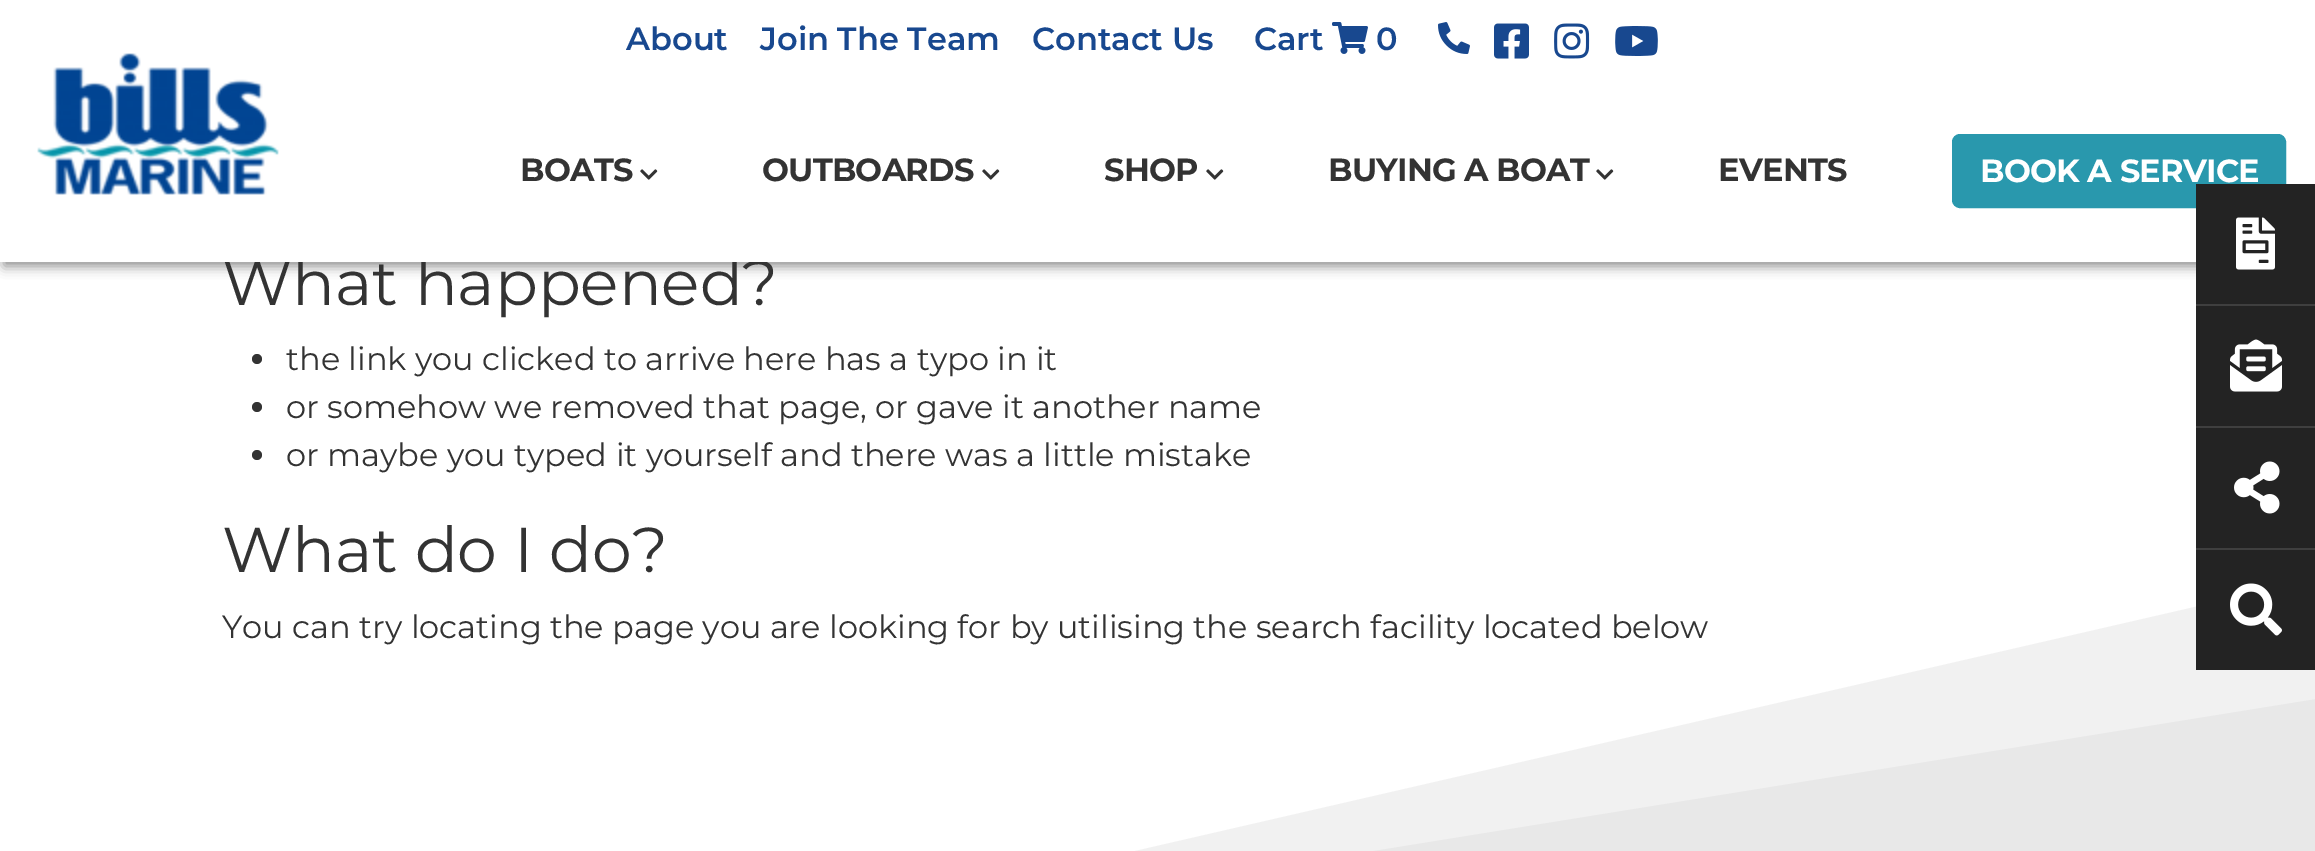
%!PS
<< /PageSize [2315 851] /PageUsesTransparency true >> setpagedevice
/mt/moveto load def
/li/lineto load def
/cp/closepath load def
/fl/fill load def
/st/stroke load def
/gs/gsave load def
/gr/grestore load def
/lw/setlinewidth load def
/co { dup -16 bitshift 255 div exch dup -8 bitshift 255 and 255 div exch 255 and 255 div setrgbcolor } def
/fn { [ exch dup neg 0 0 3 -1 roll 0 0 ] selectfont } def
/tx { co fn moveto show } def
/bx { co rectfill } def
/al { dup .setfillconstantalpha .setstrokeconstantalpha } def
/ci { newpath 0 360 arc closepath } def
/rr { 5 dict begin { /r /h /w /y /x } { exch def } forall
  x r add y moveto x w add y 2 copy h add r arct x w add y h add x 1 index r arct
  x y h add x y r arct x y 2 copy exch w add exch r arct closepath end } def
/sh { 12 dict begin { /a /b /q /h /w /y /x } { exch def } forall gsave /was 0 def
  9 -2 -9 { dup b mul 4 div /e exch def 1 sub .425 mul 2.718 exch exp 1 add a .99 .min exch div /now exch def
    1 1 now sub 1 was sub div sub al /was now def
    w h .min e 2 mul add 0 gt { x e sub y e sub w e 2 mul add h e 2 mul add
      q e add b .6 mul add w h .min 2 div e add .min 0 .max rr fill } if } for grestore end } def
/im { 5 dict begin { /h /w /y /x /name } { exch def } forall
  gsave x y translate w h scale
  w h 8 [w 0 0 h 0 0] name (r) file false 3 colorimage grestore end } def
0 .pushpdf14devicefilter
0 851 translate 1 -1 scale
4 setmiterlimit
0 0 2315 851 16#FFFFFF bx
16#141414 co
4 12 2308 254 0 6 .5 sh
16#333333 co
257 359 5 ci fl
257 407 5 ci fl
257 455 5 ci fl
2196 304 119 2 16#3F3F3F bx
2196 306 119 120 16#232323 bx
(media/9.raw) 2230 339 52 53 im
2196 426 119 2 16#3F3F3F bx
2196 428 119 120 16#232323 bx
(media/10.raw) 2234 461 46 53 im
2196 548 119 2 16#3F3F3F bx
(What happened?) 222 305 /Montserrat-Regular 63.25 16#333333 tx
0 0 2315 262 16#FFFFFF bx
(media/6.raw) 37 53 242 142 im
(media/5.raw) 1615 26 43 30 im
(media/4.raw) 1554 23 36 36 im
(media/3.raw) 1494 23 35 36 im
(media/2.raw) 1438 22 32 32 im
(0) 1376 50 /Montserrat-SemiBold 32 16#18488F tx
(media/1.raw) 1332 22 36 32 im
(Cart) 1254 50 /Montserrat-SemiBold 32 16#18488F tx
(Contact Us) 1032 50 /Montserrat-SemiBold 32 16#18488F tx
(Join The Team) 760 50 /Montserrat-SemiBold 32 16#18488F tx
(About) 626 50 /Montserrat-SemiBold 32 16#18488F tx
16#2998AD co
1954 136 330 70 6 rr gs fl gr
4 lw
st
/Montserrat-Bold 32 fn
16#FFFFFF co
1980 182 mt -.75 0 (BOOK A SERVICE) ashow
16#333333 co
1718 181 mt -.75 0 (EVENTS) ashow
(media/7.raw) 1596 169 18 11 im
1328 181 mt -.75 0 (BUYING A BOAT) ashow
(media/7.raw) 1206 169 18 11 im
1104 181 mt -.75 0 (SHOP) ashow
(media/7.raw) 982 169 18 11 im
762 181 mt -.75 0 (OUTBOARDS) ashow
(media/7.raw) 640 169 18 11 im
520 181 mt -.75 0 (BOATS) ashow
(the link you clicked to arrive here has a typo in it) 286 370 /Montserrat-Regular 32 16#333333 tx
(or somehow we removed that page, or gave it another name) 286 418 /Montserrat-Regular 32 16#333333 tx
(or maybe you typed it yourself and there was a little mistake) 286 466 /Montserrat-Regular 32 16#333333 tx
(What do I do?) 222 572 /Montserrat-Regular 63.25 16#333333 tx
(You can try locating the page you are looking for by utilising the search facility located below) 222 638 /Montserrat-Regular 32 16#333333 tx
16#F1F1F1 co
579 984 mt 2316 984 li 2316 584 li cp gs fl gr
9.6 lw
st
16#E8E8E8 co
579 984 mt 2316 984 li 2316 704 li cp gs fl gr
st
2196 184 119 120 16#232323 bx
(media/8.raw) 2236 217 39 53 im
2196 550 119 120 16#232323 bx
(media/11.raw) 2230 583 52 53 im
.poppdf14devicefilter showpage
